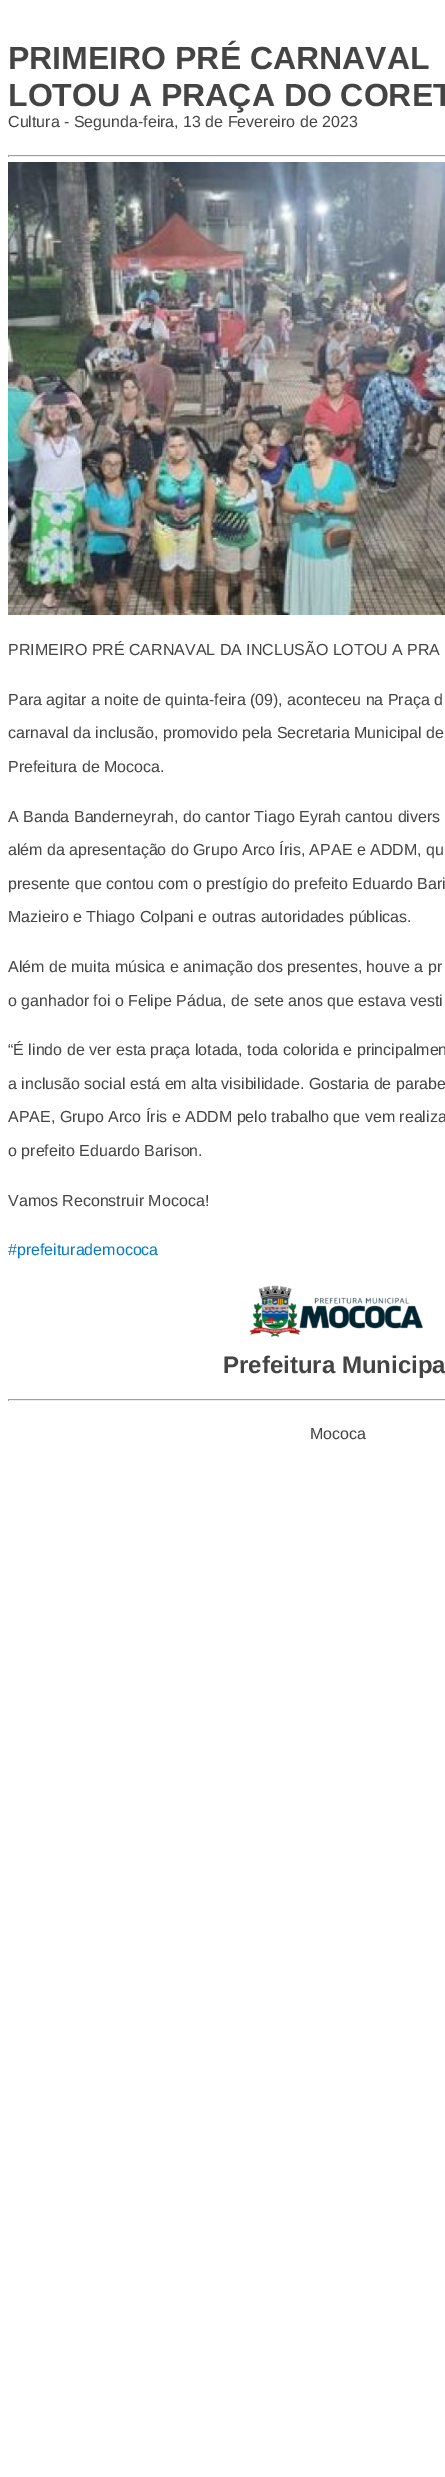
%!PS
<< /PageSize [445 2477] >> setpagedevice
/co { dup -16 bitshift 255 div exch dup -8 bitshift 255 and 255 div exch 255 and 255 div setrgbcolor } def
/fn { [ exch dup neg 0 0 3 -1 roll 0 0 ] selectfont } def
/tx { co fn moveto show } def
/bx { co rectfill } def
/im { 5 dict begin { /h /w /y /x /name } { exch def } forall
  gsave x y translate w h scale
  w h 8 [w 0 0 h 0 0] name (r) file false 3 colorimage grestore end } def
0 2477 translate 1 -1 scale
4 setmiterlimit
0 0 445 2477 16#FFFFFF bx
8 155 437 1 16#9F9F9F bx
8 156 437 1 16#EEEEEE bx
8 155 1 2 16#9F9F9F bx
(media/1.raw) 8 162 437 453 im
(media/2.raw) 249 1285 174 52 im
8 1399 437 1 16#9F9F9F bx
8 1400 437 1 16#EEEEEE bx
8 1399 1 2 16#9F9F9F bx
(PRIMEIRO PRÉ CARNAVAL) 8 69 /LiberationSans-Bold 32 16#444444 tx
(LOTOU A PRAÇA DO CORET) 8 106 /LiberationSans-Bold 32 16#444444 tx
(Cultura - Segunda-feira, 13 de Fevereiro de 2023) 8 127 /LiberationSans-Regular 16 16#444444 tx
(PRIMEIRO PRÉ CARNAVAL DA INCLUSÃO LOTOU A PRA) 8 655 /LiberationSans-Regular 16 16#444444 tx
(Para agitar a noite de quinta-feira \(09\), aconteceu na Praça d) 8 705 /LiberationSans-Regular 16 16#444444 tx
(carnaval da inclusão, promovido pela Secretaria Municipal de) 8 738 /LiberationSans-Regular 16 16#444444 tx
(Prefeitura de Mococa.) 8 772 /LiberationSans-Regular 16 16#444444 tx
(A Banda Banderneyrah, do cantor Tiago Eyrah cantou divers) 8 822 /LiberationSans-Regular 16 16#444444 tx
(além da apresentação do Grupo Arco Íris, APAE e ADDM, qu) 8 855 /LiberationSans-Regular 16 16#444444 tx
(presente que contou com o prestígio do prefeito Eduardo Bari) 8 889 /LiberationSans-Regular 16 16#444444 tx
(Mazieiro e Thiago Colpani e outras autoridades públicas.) 8 922 /LiberationSans-Regular 16 16#444444 tx
(Além de muita música e animação dos presentes, houve a pr) 8 972 /LiberationSans-Regular 16 16#444444 tx
(o ganhador foi o Felipe Pádua, de sete anos que estava vesti) 8 1006 /LiberationSans-Regular 16 16#444444 tx
(“É lindo de ver esta praça lotada, toda colorida e principalmen) 8 1055 /LiberationSans-Regular 16 16#444444 tx
(a inclusão social está em alta visibilidade. Gostaria de parabe) 8 1089 /LiberationSans-Regular 16 16#444444 tx
(APAE, Grupo Arco Íris e ADDM pelo trabalho que vem realiza) 8 1122 /LiberationSans-Regular 16 16#444444 tx
(o prefeito Eduardo Barison.) 8 1156 /LiberationSans-Regular 16 16#444444 tx
(Vamos Reconstruir Mococa!) 8 1206 /LiberationSans-Regular 16 16#444444 tx
(#prefeiturademococa) 8 1255 /LiberationSans-Regular 16 16#057AC5 tx
(Prefeitura Municipa) 223 1373 /LiberationSans-Bold 24 16#444444 tx
(Mococa) 310 1439 /LiberationSans-Regular 16 16#444444 tx
showpage
